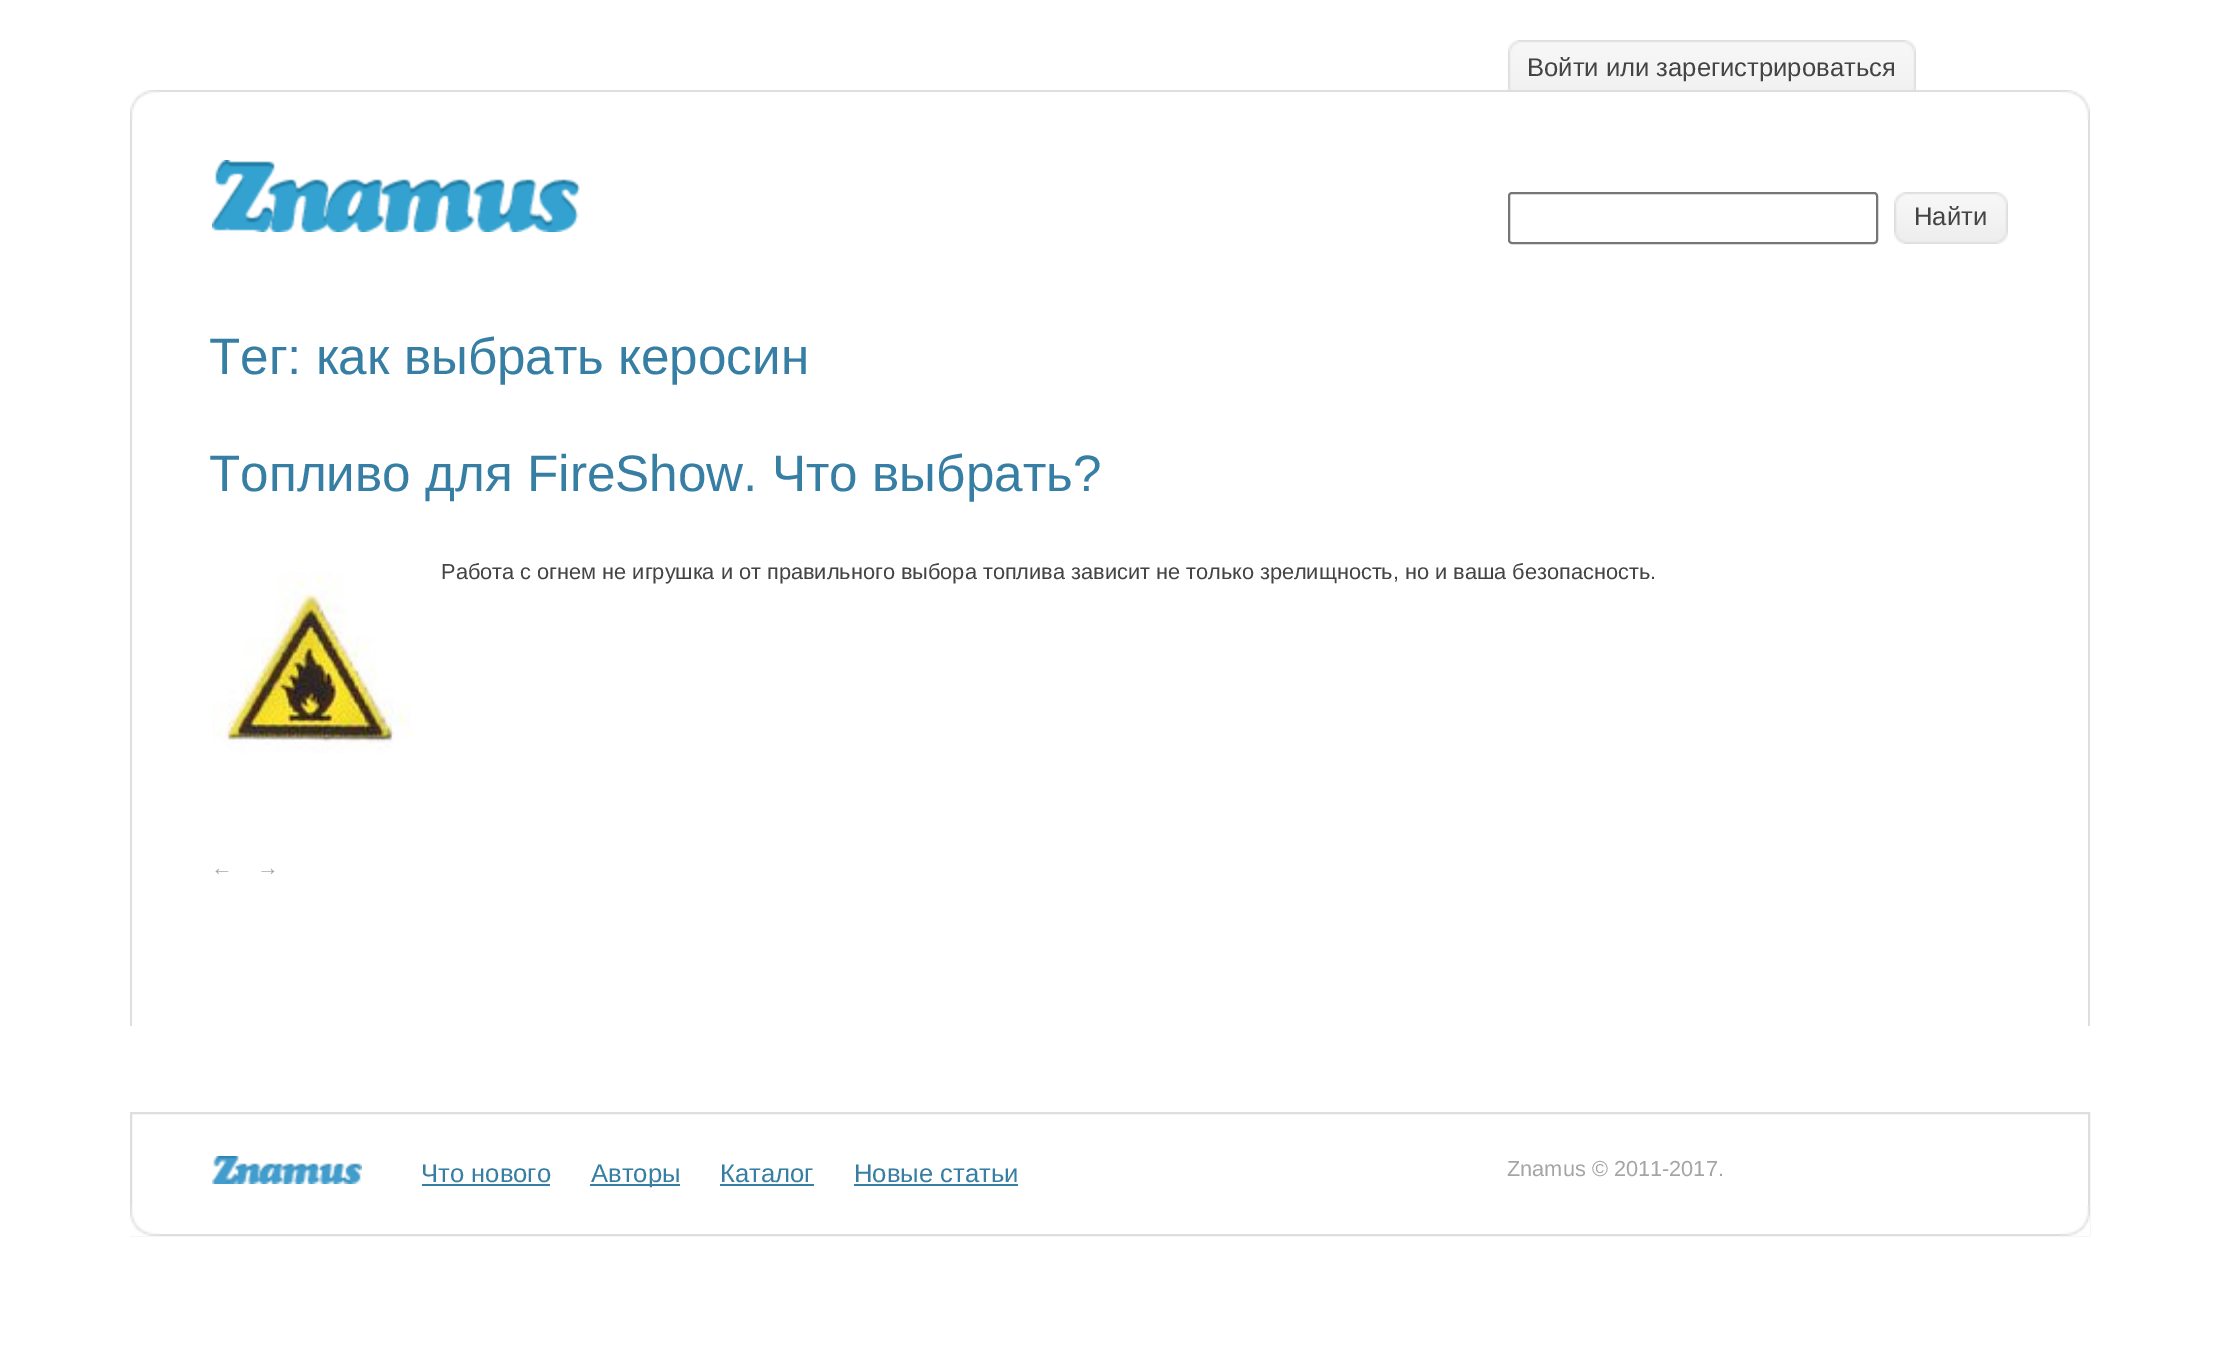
%!PS
<< /PageSize [2218 1361] >> setpagedevice
/st/stroke load def
/lw/setlinewidth load def
/co { dup -16 bitshift 255 div exch dup -8 bitshift 255 and 255 div exch 255 and 255 div setrgbcolor } def
/fn { [ exch dup neg 0 0 3 -1 roll 0 0 ] selectfont } def
/tx { co fn moveto show } def
/bx { co rectfill } def
/rr { 5 dict begin { /r /h /w /y /x } { exch def } forall
  x r add y moveto x w add y 2 copy h add r arct x w add y h add x 1 index r arct
  x y h add x y r arct x y 2 copy exch w add exch r arct closepath end } def
/im { 5 dict begin { /h /w /y /x /name } { exch def } forall
  gsave x y translate w h scale
  w h 8 [w 0 0 h 0 0] name (r) file false 3 colorimage grestore end } def
0 1361 translate 1 -1 scale
4 setmiterlimit
0 0 2218 1361 16#FFFFFF bx
160 90 1900 2 16#DEDEDE bx
2088 120 2 906 16#DEDEDE bx
130 120 2 906 16#DEDEDE bx
(media/1.raw) 1519 40 397 50 im
(media/2.raw) 1508 40 11 50 im
(media/3.raw) 212 160 368 72 im
16#767676 co
2 lw
1509 193 368 50 3 rr st
(media/4.raw) 1905 192 103 52 im
(media/5.raw) 1894 192 11 52 im
(media/6.raw) 130 90 30 30 im
(media/7.raw) 2060 90 30 30 im
(media/8.raw) 212 572 200 181 im
16#DEDEDE co
131 1113 1958 122 rectstroke
(media/9.raw) 212 1156 150 28 im
422 1184 128 2 16#367EA3 bx
590 1184 90 2 16#367EA3 bx
720 1184 94 2 16#367EA3 bx
854 1184 164 2 16#367EA3 bx
(media/10.raw) 130 1206 30 30 im
(media/11.raw) 2060 1206 30 30 im
(Войти или зарегистрироваться) 1527 76 /LiberationSans-Regular 25.6 16#444444 tx
(Найти) 1914 225 /LiberationSans-Regular 25.6 16#444444 tx
(Тег: как выбрать керосин) 209 374 /LiberationSans-Regular 51.25 16#367EA3 tx
(Топливо для FireShow. Что выбрать?) 209 491 /LiberationSans-Regular 51.25 16#367EA3 tx
(Работа с огнем не игрушка и от правильного выбора топлива зависит не только зрелищность, но и ваша безопасность.) 441 579 /LiberationSans-Regular 21.75 16#444444 tx
(←) 211 875 /LiberationSans-Regular 21.75 16#A5A5A5 tx
(→) 257 875 /LiberationSans-Regular 21.75 16#A5A5A5 tx
(Что нового) 421 1182 /LiberationSans-Regular 25.6 16#367EA3 tx
(Авторы) 591 1182 /LiberationSans-Regular 25.6 16#367EA3 tx
(Каталог) 720 1182 /LiberationSans-Regular 25.6 16#367EA3 tx
(Новые статьи) 854 1182 /LiberationSans-Regular 25.6 16#367EA3 tx
(Znamus © 2011-2017.) 1507 1176 /LiberationSans-Regular 21.75 16#A5A5A5 tx
showpage
